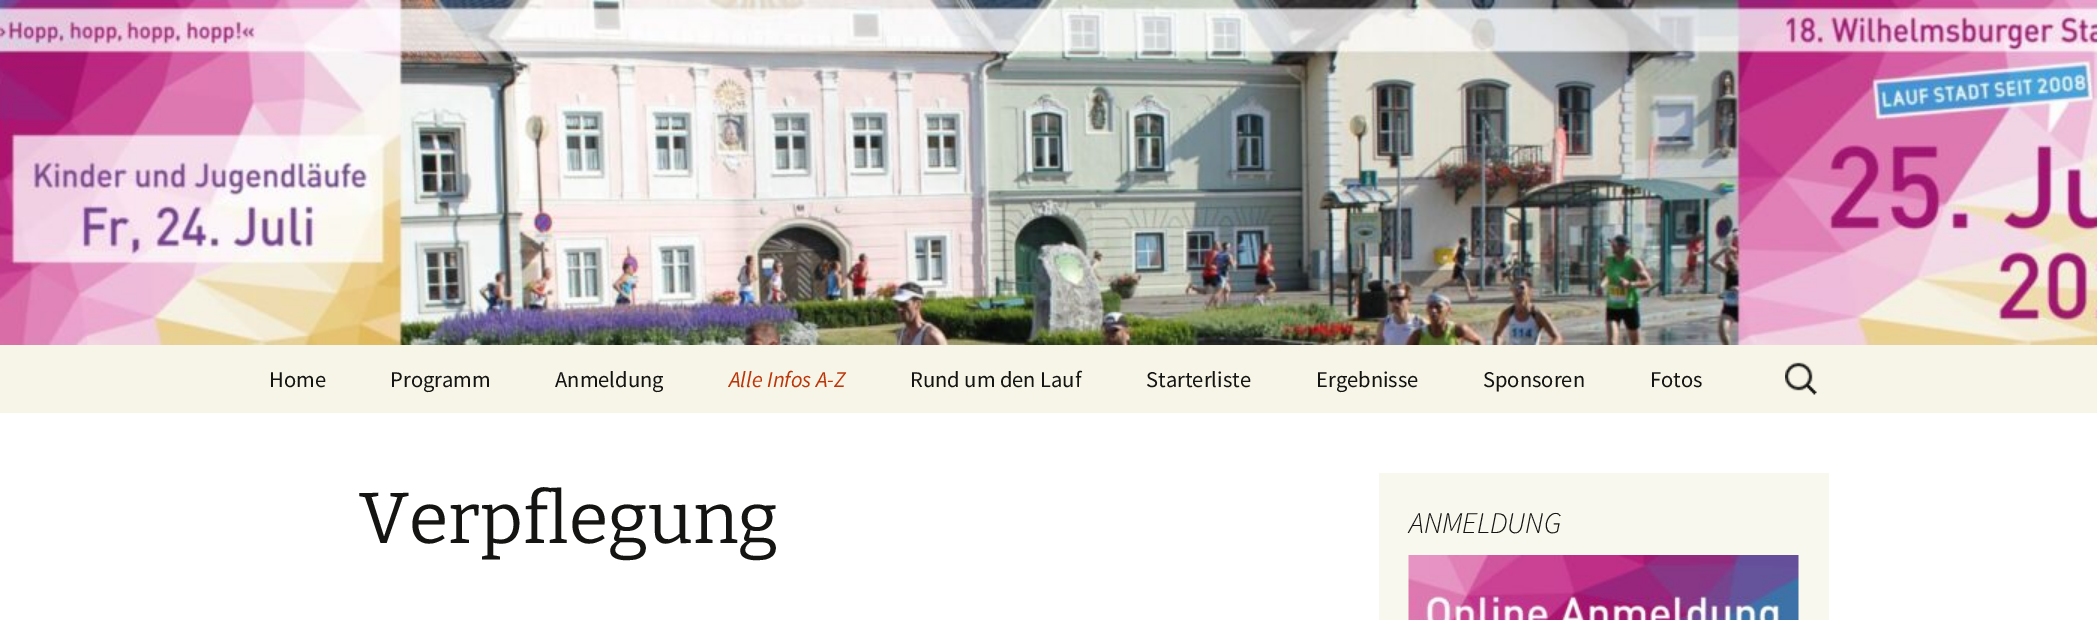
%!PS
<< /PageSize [2097 620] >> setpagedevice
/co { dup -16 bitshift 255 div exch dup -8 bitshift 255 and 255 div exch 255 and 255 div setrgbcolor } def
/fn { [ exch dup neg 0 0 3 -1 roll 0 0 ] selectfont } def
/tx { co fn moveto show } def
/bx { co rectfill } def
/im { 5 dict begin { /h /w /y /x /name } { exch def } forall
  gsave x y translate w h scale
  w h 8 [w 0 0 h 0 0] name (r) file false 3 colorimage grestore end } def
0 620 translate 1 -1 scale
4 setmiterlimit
0 0 2097 620 16#FFFFFF bx
(media/1.raw) 0 0 2097 345 im
0 345 2097 68 16#F7F5E7 bx
(media/2.raw) 1785 362 32 33 im
1379 473 450 147 16#F9F8EE bx
(media/3.raw) 1408 555 391 65 im
(Home) 269 387 /SourceSansPro-Regular 22.5 16#141412 tx
(Programm) 390 387 /SourceSansPro-Regular 22.5 16#141412 tx
(Anmeldung) 555 387 /SourceSansPro-Regular 22.5 16#141412 tx
(Alle Infos A-Z) 729 387 /SourceSansPro-Italic 22.5 16#BC360A tx
(Rund um den Lauf) 910 387 /SourceSansPro-Regular 22.5 16#141412 tx
(Starterliste) 1146 387 /SourceSansPro-Regular 22.5 16#141412 tx
(Ergebnisse) 1316 387 /SourceSansPro-Regular 22.5 16#141412 tx
(Sponsoren) 1483 387 /SourceSansPro-Regular 22.5 16#141412 tx
(Fotos) 1650 387 /SourceSansPro-Regular 22.5 16#141412 tx
(Verpflegung) 359 543 /Bitter-Thin 72 16#141412 tx
(ANMELDUNG) 1409 533 /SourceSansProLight-LightItalic 30 16#141412 tx
showpage
